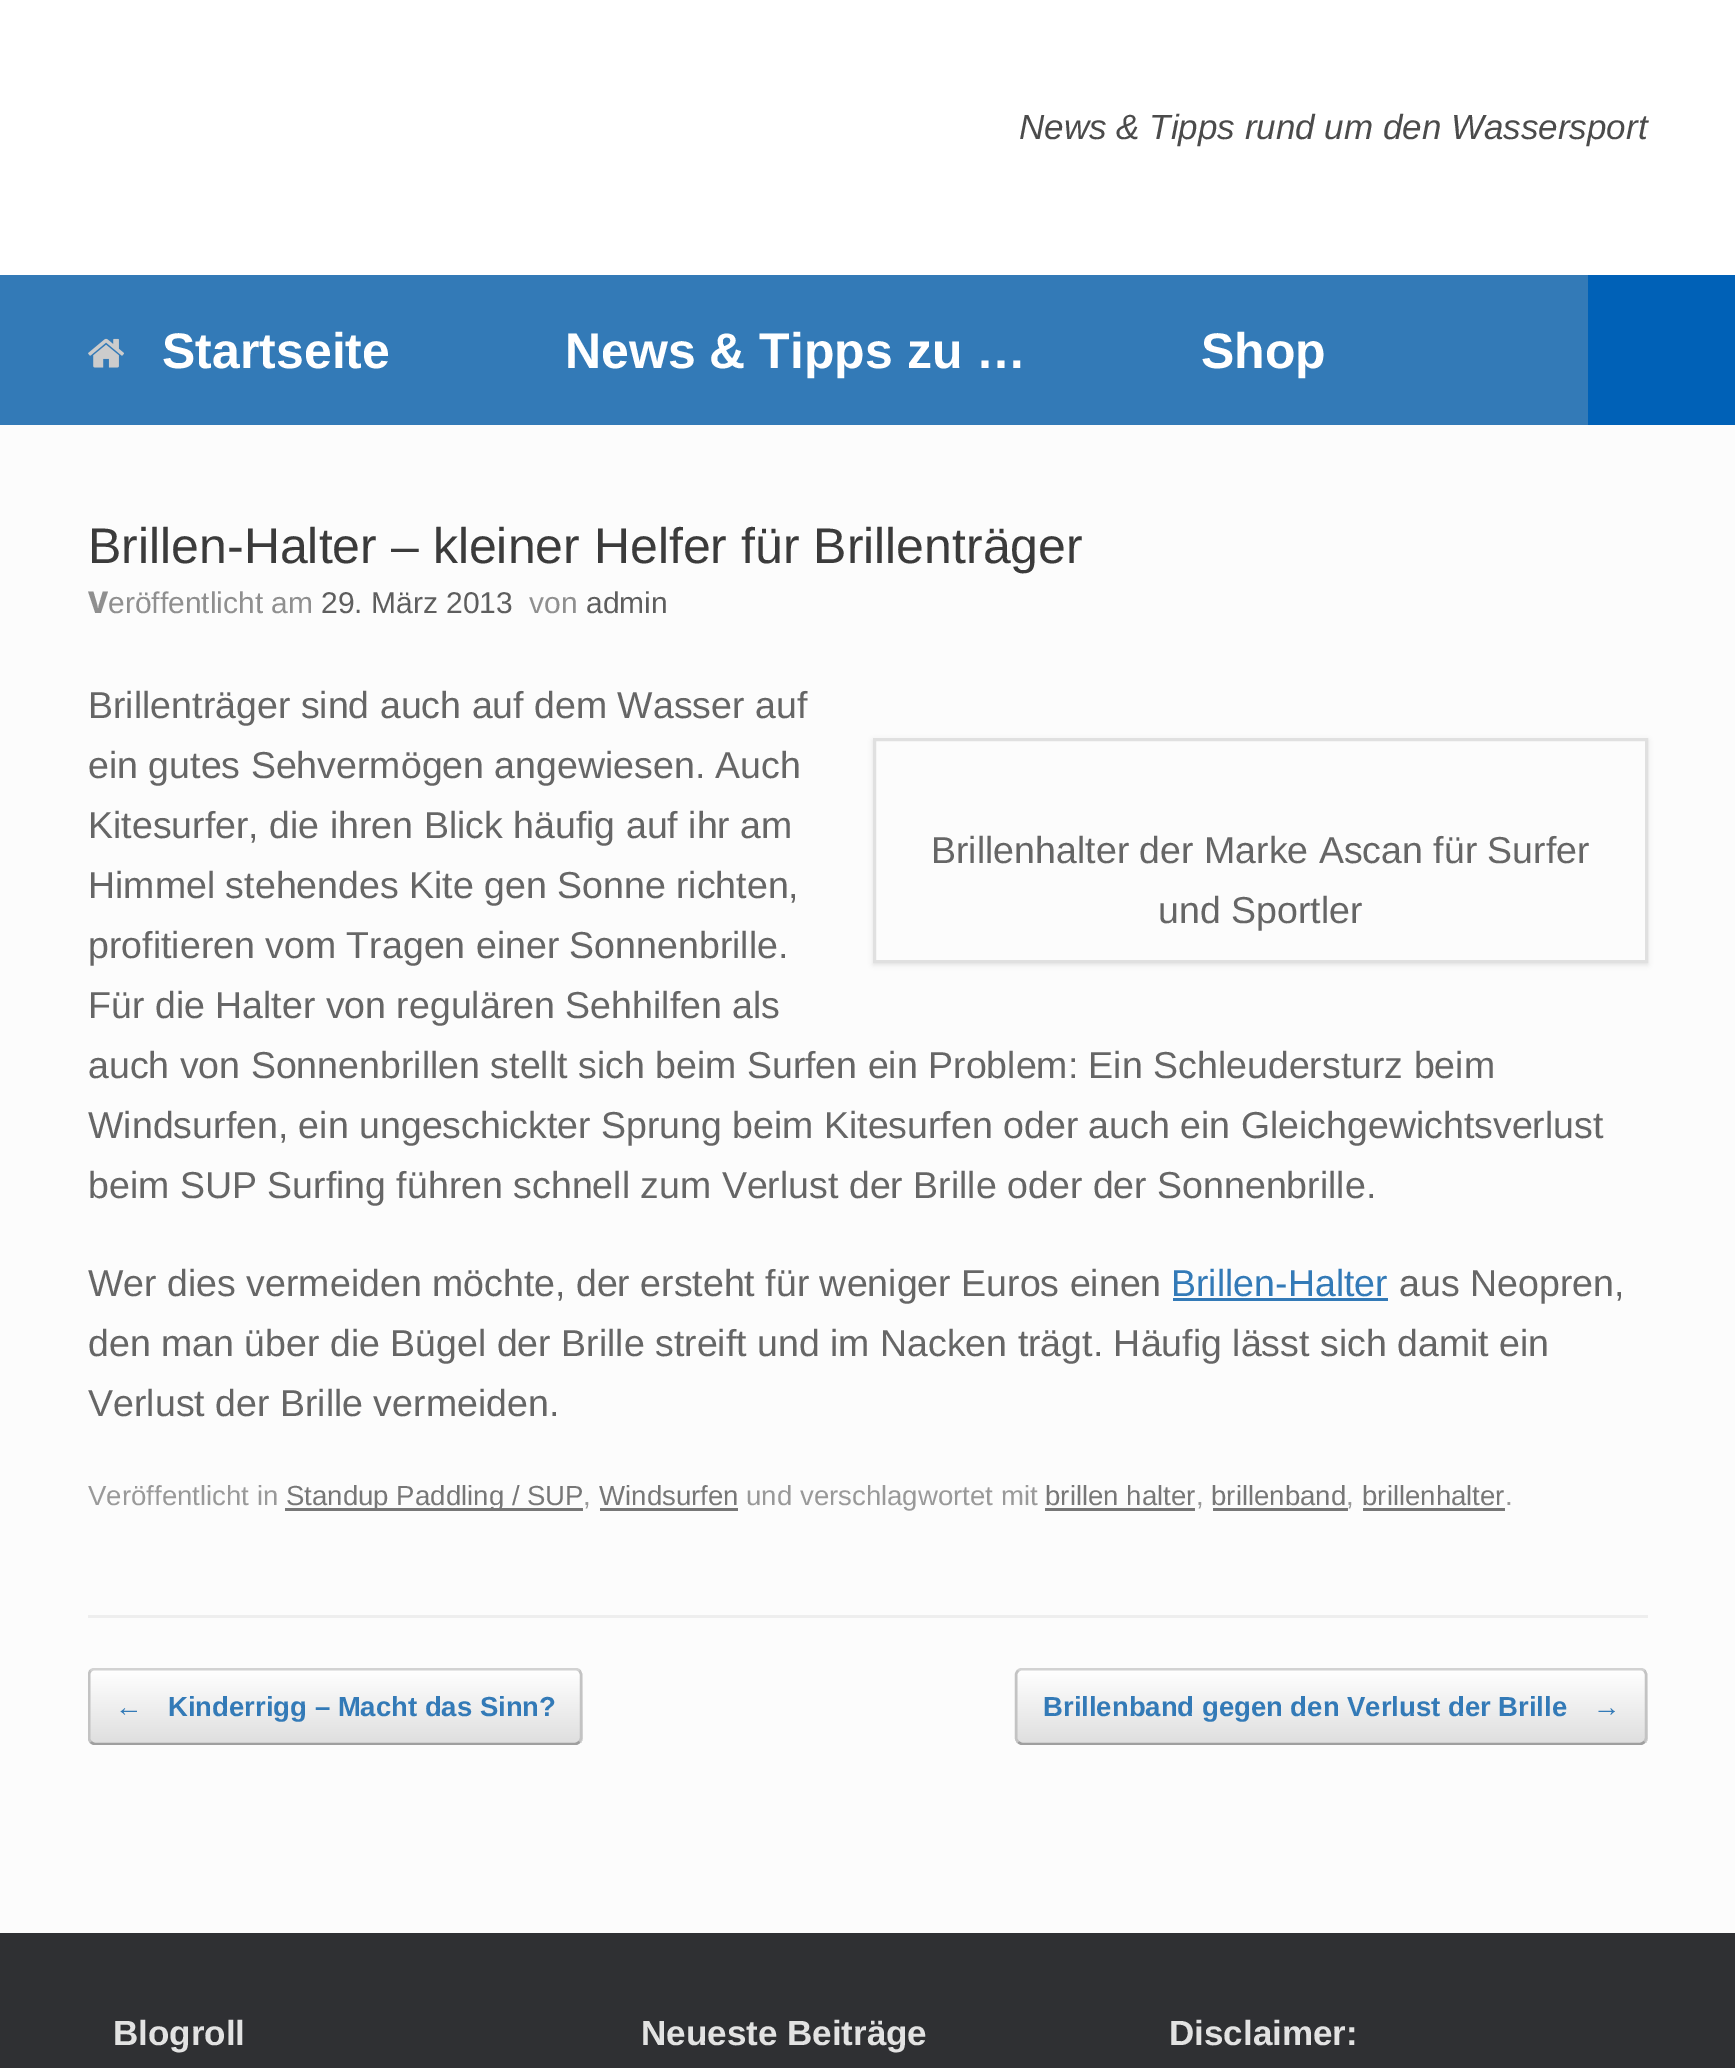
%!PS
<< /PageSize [1735 2068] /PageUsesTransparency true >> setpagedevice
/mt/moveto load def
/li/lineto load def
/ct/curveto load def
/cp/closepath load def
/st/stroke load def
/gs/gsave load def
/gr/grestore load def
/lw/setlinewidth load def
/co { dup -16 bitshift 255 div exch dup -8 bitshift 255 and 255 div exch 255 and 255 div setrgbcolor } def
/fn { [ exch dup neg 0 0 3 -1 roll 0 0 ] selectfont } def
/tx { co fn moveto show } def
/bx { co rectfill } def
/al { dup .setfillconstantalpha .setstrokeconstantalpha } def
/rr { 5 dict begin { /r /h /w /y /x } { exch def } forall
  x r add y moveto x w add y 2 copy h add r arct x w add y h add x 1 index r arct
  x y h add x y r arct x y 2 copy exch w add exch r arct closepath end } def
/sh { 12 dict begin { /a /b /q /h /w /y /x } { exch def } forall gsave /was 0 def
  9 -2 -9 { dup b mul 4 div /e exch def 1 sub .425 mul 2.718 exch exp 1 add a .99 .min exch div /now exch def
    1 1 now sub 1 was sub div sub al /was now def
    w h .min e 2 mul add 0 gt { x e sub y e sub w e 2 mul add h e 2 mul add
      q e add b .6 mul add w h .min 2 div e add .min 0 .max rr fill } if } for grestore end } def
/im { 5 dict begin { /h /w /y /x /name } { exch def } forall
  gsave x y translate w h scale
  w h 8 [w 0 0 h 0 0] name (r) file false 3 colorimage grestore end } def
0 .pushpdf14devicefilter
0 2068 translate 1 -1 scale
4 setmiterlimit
0 0 1735 2068 16#2F3033 bx
0 0 1735 275 16#FFFFFF bx
0 275 1588 150 16#337AB7 bx
(media/1.raw) 88 338 36 30 im
1588 275 147 150 16#0061B7 bx
0 425 1735 1508 16#FCFCFC bx
88 1615 1560 3 16#EEEEEE bx
gs
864 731 mt 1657 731 li 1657 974 li 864 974 li cp 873 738 mt 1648 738 li 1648 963 li 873 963 li cp eoclip newpath
16#000000 co
873 740 775 225 0 2.5 .09 sh
gr
16#E0E0E0 co
3 lw
874.5 739.5 772 222 rectstroke
1173 1298 215 3 16#337AB7 bx
285 1508 298 3 16#777777 bx
600 1508 138 3 16#777777 bx
1045 1508 150 3 16#777777 bx
1213 1508 135 3 16#777777 bx
1363 1508 142 3 16#777777 bx
gs
88 1668 495 77 8 rr clip newpath
gs 88 1670 mt 583 1670 li 583 1743 li 88 1743 li cp clip newpath
<< /ShadingType 2 /ColorSpace /DeviceRGB /Coords [90 1743 90 1670] /Extend [true true] /Function << /FunctionType 2 /Domain [0 1] /C0 [.875 .875 .875] /C1 [1 1 1] /N 1 >> >> shfill gr
gs 88 1743 mt 583 1743 li 583 1745 li 88 1745 li cp clip newpath
<< /ShadingType 2 /ColorSpace /DeviceRGB /Coords [90 1815 90 1743] /Extend [true true] /Function << /FunctionType 2 /Domain [0 1] /C0 [.875 .875 .875] /C1 [1 1 1] /N 1 >> >> shfill gr
gr
gs
88 1668 1560 77 rectclip
16#D2D2D2 co
2.5 lw
90.5 1670.5 mt 92 1669.5 93.5 1669 95 1669 ct 575 1669 li 576.5 1669 578 1669.5 579.5 1670.5 ct st
gr
16#C3C3C3 co
2.5 lw
579.5 1670.5 mt 580.5 1672 581 1673.5 581 1675 ct 581 1737.5 li 581 1739 580.5 1740.5 579.5 1742 ct st
gs
88 1668 1560 77 rectclip
16#9F9F9F co
579.5 1742 mt 578 1743 576.5 1744 575 1744 ct 95 1744 li 93.5 1744 92 1743 90.5 1742 ct st
16#C3C3C3 co
90.5 1742 mt 89.5 1740.5 89 1739 89 1737.5 ct 89 1675 li 89 1673.5 89.5 1672 90.5 1670.5 ct st
gr
gs
1015 1668 633 77 8 rr clip newpath
gs 1015 1670 mt 1648 1670 li 1648 1743 li 1015 1743 li cp clip newpath
<< /ShadingType 2 /ColorSpace /DeviceRGB /Coords [1018 1743 1018 1670] /Extend [true true] /Function << /FunctionType 2 /Domain [0 1] /C0 [.875 .875 .875] /C1 [1 1 1] /N 1 >> >> shfill gr
gs 1015 1743 mt 1648 1743 li 1648 1745 li 1015 1745 li cp clip newpath
<< /ShadingType 2 /ColorSpace /DeviceRGB /Coords [1018 1815 1018 1743] /Extend [true true] /Function << /FunctionType 2 /Domain [0 1] /C0 [.875 .875 .875] /C1 [1 1 1] /N 1 >> >> shfill gr
gr
gs
88 1668 1560 77 rectclip
16#D2D2D2 co
1018 1670.5 mt 1019.5 1669.5 1021 1669 1022.5 1669 ct 1640 1669 li 1641.5 1669 1643 1669.5 1644.5 1670.5 ct st
gr
1644.5 1670.5 mt 1645.5 1672 1646 1673.5 1646 1675 ct 1646 1737.5 li 1646 1739 1645.5 1740.5 1644.5 1742 ct st
gs
88 1668 1560 77 rectclip
16#9F9F9F co
1644.5 1742 mt 1643 1743 1641.5 1744 1640 1744 ct 1022.5 1744 li 1021 1744 1019.5 1743 1018 1742 ct st
gr
1018 1742 mt 1017 1740.5 1016 1739 1016 1737.5 ct 1016 1675 li 1016 1673.5 1017 1672 1018 1670.5 ct st
(News & Tipps rund um den Wassersport) 1019 139 /LiberationSans-Italic 35 16#4B4B4B tx
(Startseite) 162 368 /LiberationSans-Bold 50 16#FFFFFF tx
(News & Tipps zu …) 565 368 /LiberationSans-Bold 50 16#FFFFFF tx
(Shop) 1201 368 /LiberationSans-Bold 50 16#FFFFFF tx
(Brillen-Halter – kleiner Helfer für Brillenträger) 88 563 /LiberationSans-Regular 50 16#3B3B3B tx
(V) 88 613 /NotoSans-ExtraBold 30 16#8F8F8F tx
(eröffentlicht am) 108 613 /LiberationSans-Regular 30 16#8F8F8F tx
(29. März 2013) 321 613 /LiberationSans-Regular 30 16#5E5E5E tx
(von) 529 613 /LiberationSans-Regular 30 16#8F8F8F tx
(admin) 586 613 /LiberationSans-Regular 30 16#5E5E5E tx
(Brillenträger sind auch auf dem Wasser auf) 88 718 /LiberationSans-Regular 37.5 16#666666 tx
(ein gutes Sehvermögen angewiesen. Auch) 88 778 /LiberationSans-Regular 37.5 16#666666 tx
(Kitesurfer, die ihren Blick häufig auf ihr am) 88 838 /LiberationSans-Regular 37.5 16#666666 tx
(Himmel stehendes Kite gen Sonne richten,) 88 898 /LiberationSans-Regular 37.5 16#666666 tx
(profitieren vom Tragen einer Sonnenbrille.) 88 958 /LiberationSans-Regular 37.5 16#666666 tx
(Für die Halter von regulären Sehhilfen als) 88 1018 /LiberationSans-Regular 37.5 16#666666 tx
(auch von Sonnenbrillen stellt sich beim Surfen ein Problem: Ein Schleudersturz beim) 88 1078 /LiberationSans-Regular 37.5 16#666666 tx
(Windsurfen, ein ungeschickter Sprung beim Kitesurfen oder auch ein Gleichgewichtsverlust) 88 1138 /LiberationSans-Regular 37.5 16#666666 tx
(beim SUP Surfing führen schnell zum Verlust der Brille oder der Sonnenbrille.) 88 1198 /LiberationSans-Regular 37.5 16#666666 tx
(Brillenhalter der Marke Ascan für Surfer) 931 863 /LiberationSans-Regular 37.5 16#666666 tx
(und Sportler) 1158 923 /LiberationSans-Regular 37.5 16#666666 tx
(Wer dies vermeiden möchte, der ersteht für weniger Euros einen) 88 1296 /LiberationSans-Regular 37.5 16#666666 tx
(Brillen-Halter) 1171 1296 /LiberationSans-Regular 37.5 16#337AB7 tx
(aus Neopren,) 1399 1296 /LiberationSans-Regular 37.5 16#666666 tx
(den man über die Bügel der Brille streift und im Nacken trägt. Häufig lässt sich damit ein) 88 1356 /LiberationSans-Regular 37.5 16#666666 tx
(Verlust der Brille vermeiden.) 88 1416 /LiberationSans-Regular 37.5 16#666666 tx
(Veröffentlicht in) 88 1505 /LiberationSans-Regular 27.6 16#999999 tx
(Standup Paddling / SUP) 286 1505 /LiberationSans-Regular 27.6 16#777777 tx
(,) 583 1505 /LiberationSans-Regular 27.6 16#999999 tx
(Windsurfen) 599 1505 /LiberationSans-Regular 27.6 16#777777 tx
(und verschlagwortet mit) 746 1505 /LiberationSans-Regular 27.6 16#999999 tx
(brillen halter) 1045 1505 /LiberationSans-Regular 27.6 16#777777 tx
(,) 1196 1505 /LiberationSans-Regular 27.6 16#999999 tx
(brillenband) 1211 1505 /LiberationSans-Regular 27.6 16#777777 tx
(,) 1346 1505 /LiberationSans-Regular 27.6 16#999999 tx
(brillenhalter) 1362 1505 /LiberationSans-Regular 27.6 16#777777 tx
(.) 1505 1505 /LiberationSans-Regular 27.6 16#999999 tx
(←) 115 1716 /LiberationSans-Bold 27.5 16#337AB7 tx
(Kinderrigg – Macht das Sinn?) 168 1716 /LiberationSans-Bold 27.5 16#337AB7 tx
(Brillenband gegen den Verlust der Brille) 1043 1716 /LiberationSans-Bold 27.5 16#337AB7 tx
(→) 1593 1716 /LiberationSans-Bold 27.5 16#337AB7 tx
(Blogroll) 113 2045 /LiberationSans-Bold 35 16#E2E2E2 tx
(Neueste Beiträge) 641 2045 /LiberationSans-Bold 35 16#E2E2E2 tx
(Disclaimer:) 1169 2045 /LiberationSans-Bold 35 16#E2E2E2 tx
.poppdf14devicefilter showpage
